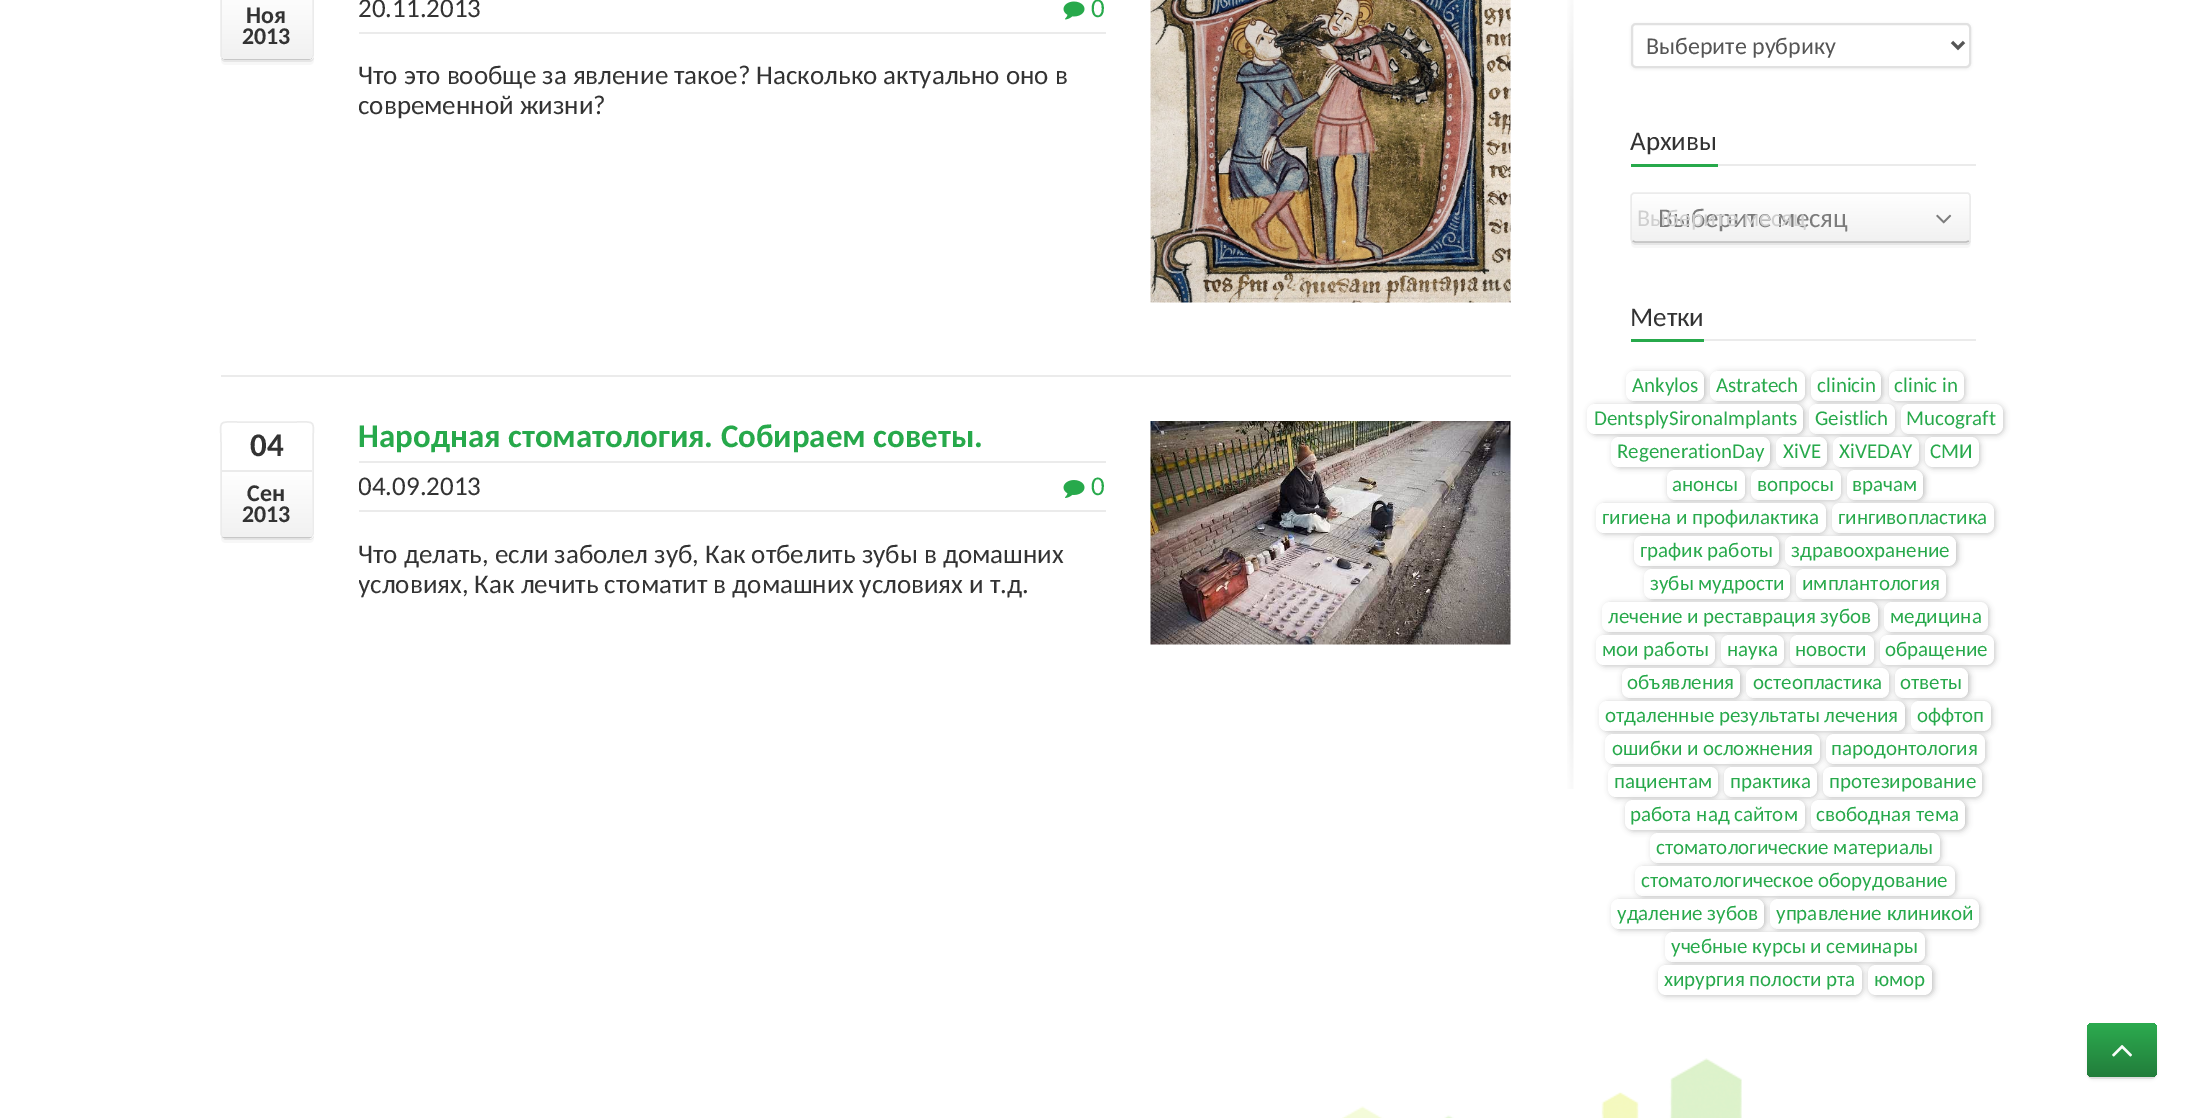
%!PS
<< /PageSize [2194 1118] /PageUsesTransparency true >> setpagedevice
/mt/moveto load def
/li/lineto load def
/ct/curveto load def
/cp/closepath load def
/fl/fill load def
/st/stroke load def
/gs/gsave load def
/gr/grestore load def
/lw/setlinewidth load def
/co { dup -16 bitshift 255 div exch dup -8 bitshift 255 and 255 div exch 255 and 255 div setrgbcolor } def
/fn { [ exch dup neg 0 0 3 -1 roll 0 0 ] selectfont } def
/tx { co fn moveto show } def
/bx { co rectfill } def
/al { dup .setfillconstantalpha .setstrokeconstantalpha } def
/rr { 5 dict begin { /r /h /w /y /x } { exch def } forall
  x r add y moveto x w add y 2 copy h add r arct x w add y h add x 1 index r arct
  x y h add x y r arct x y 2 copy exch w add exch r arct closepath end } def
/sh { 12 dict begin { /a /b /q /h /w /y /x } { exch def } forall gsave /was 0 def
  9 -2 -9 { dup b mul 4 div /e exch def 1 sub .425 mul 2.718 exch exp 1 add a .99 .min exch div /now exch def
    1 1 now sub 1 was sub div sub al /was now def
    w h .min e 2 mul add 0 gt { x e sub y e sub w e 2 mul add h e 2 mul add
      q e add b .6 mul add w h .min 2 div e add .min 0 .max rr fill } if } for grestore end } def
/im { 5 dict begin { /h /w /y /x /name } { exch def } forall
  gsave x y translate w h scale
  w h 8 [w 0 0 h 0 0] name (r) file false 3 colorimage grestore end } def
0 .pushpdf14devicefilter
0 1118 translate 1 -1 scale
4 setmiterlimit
0 0 2194 1118 16#FFFFFF bx
221 375 1290 2 16#EBEBEB bx
16#EDEDED co
221 58 mt 221 60 223 62 226 62 ct 309 62 li 312 62 314 60 314 57 ct 314 -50 li 314 -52 li 314 56 li 314 58 311 60 309 60 ct 225 60 li 223 60 222 59 221 58 ct cp fl
0.03 al
16#000000 co
221 58 mt 221 60 li 221 63 223 65 226 65 ct 309 65 li 312 65 314 63 314 60 ct 314 -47 li 314 -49 li 314 56 li 314 58 311 60 309 60 ct 225 60 li 223 60 222 59 221 58 ct cp fl
1 al
16#FFFFFF co
221 -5 93 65 5 rr fl
16#C7C7C7 co
1.5 lw
311.5 58 mt 309.5 59 li 224.5 59 li 222.5 58 li st
16#EBEBEB co
222.5 58 mt 221 55.5 li 221 -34.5 li 221 -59 216.5 -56 239 -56 ct 295 -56 li 317.5 -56 313 -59 313 -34.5 ct 313 55.5 li 311.5 58 li st
gs 222 -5 mt 312 -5 li 312 54 li 312 57 310 59 307 59 ct 227 59 li 224 59 222 57 222 54 ct cp clip newpath
<< /ShadingType 2 /ColorSpace /DeviceRGB /Coords [267 -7.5 267 59] /Extend [true true] /Function << /FunctionType 2 /Domain [0 1] /C0 [1 1 1] /C1 [.945 .945 .945] /N 1 >> >> shfill gr
359 32 747 2 16#EBEBEB bx
(media/1.raw) 1063 1 22 19 im
(media/2.raw) 1150 0 361 303 im
16#EDEDED co
221 536 mt 222 538 224 540 226 540 ct 309 540 li 312 540 314 538 314 535 ct 314 428 li 313 426 li 314 534 li 314 536 311 538 309 538 ct 225 538 li 223 538 222 538 221 536 ct cp fl
0.03 al
16#000000 co
221 536 mt 221 538 li 221 541 223 543 226 543 ct 309 543 li 312 543 314 541 314 538 ct 314 431 li 314 429 li 314 534 li 314 536 311 538 309 538 ct 225 538 li 223 538 222 538 221 536 ct cp fl
1 al
16#FFFFFF co
221 422 93 117 5 rr fl
16#C7C7C7 co
311.5 536.5 mt 309.5 537.5 li 224.5 537.5 li 222.5 536.5 li st
16#EBEBEB co
222.5 536.5 mt 221 534 li 221 444 li 221 419.5 216.5 422 239 422 ct 295 422 li 317.5 422 313 419.5 313 444 ct 313 534 li 311.5 536.5 li st
gs 222 471 mt 312 471 li 312 532 li 312 535 310 537 307 537 ct 227 537 li 224 537 222 535 222 532 ct cp clip newpath
<< /ShadingType 2 /ColorSpace /DeviceRGB /Coords [267 471 267 537] /Extend [true true] /Function << /FunctionType 2 /Domain [0 1] /C0 [1 1 1] /C1 [.945 .945 .945] /N 1 >> >> shfill gr
222 470 90 2 16#EBEBEB bx
359 461 747 2 16#EBEBEB bx
359 510 747 2 16#EBEBEB bx
(media/3.raw) 1063 480 22 18 im
(media/4.raw) 1150 421 361 224 im
(media/5.raw) 1567 0 7 393 im
(media/6.raw) 1567 392 7 397 im
16#B4B4B4 co
1631 24 340 45 5 1.5 .2 sh
16#FFFFFF co
1632 24 338 43 4 rr gs fl gr
16#E1E1E1 co
2 lw
st
16#555555 co
3 lw
1952 42 mt 1958 48 li 1964 42 li st
1718 164 258 2 16#EBEBEB bx
1631 164 87 3 16#27A94B bx
16#EDEDED co
1631 241 mt 1631 243 1634 245 1636 245 ct 1966 245 li 1970 245 1971 242 1971 238 ct 1971 241 1969 243 1966 243 ct 1635 243 li 1633 243 1632 242 1631 241 ct cp fl
0.03 al
16#000000 co
1631 241 mt 1631 243 li 1631 246 1633 248 1636 248 ct 1966 248 li 1969 248 1971 246 1971 243 ct 1971 238 li 1971 241 1969 243 1966 243 ct 1635 243 li 1633 243 1632 242 1631 241 ct cp fl
1 al
16#FFFFFF co
1631 192 340 51 5 rr fl
gs
1631 192 340 51 5 rr clip newpath
gs 1631 194 mt 1971 194 li 1971 242 li 1631 242 li cp clip newpath
<< /ShadingType 2 /ColorSpace /DeviceRGB /Coords [1801 194 1801 242] /Extend [true true] /Function << /FunctionType 2 /Domain [0 1] /C0 [1 1 1] /C1 [.945 .945 .945] /N 1 >> >> shfill gr
gr
0.22 al
16#000000 co
1.5 lw
1969 241 mt 1966.5 242 li 1635 242 li 1632.5 241 li st
1 al
16#EBEBEB co
1632.5 241 mt 1631.5 240.5 1631 239.5 1631 238.5 ct 1631 196.5 li 1631 195.5 1631.5 194.5 1632.5 194 ct 1633 193 1634 193 1635 193 ct 1966.5 193 li 1967.5 193 1968.5 193 1969 194 ct 1970 194.5 1970 195.5 1970 196.5 ct 1970 238.5 li 1970 239.5 1970 240.5 1969 241 ct st
(media/7.raw) 1936 214 16 10 im
1704 339 272 2 16#EBEBEB bx
1631 339 73 3 16#27A94B bx
16#C0C0C0 co
1628 372 78 30 8 3 1 sh
16#FFFFFF co
1626 371 78 30 8 rr fl
16#C0C0C0 co
1712 372 94 30 8 3 1 sh
16#FFFFFF co
1710 371 95 30 8 rr fl
16#C0C0C0 co
1812 372 71 30 8 3 1 sh
16#FFFFFF co
1811 371 70 30 8 rr fl
16#C0C0C0 co
1890 372 75 30 8 3 1 sh
16#FFFFFF co
1889 371 75 30 8 rr fl
16#C0C0C0 co
1589 405 216 30 8 3 1 sh
16#FFFFFF co
1587 404 216 30 8 rr fl
16#C0C0C0 co
1811 405 85 30 8 3 1 sh
16#FFFFFF co
1809 404 86 30 8 rr fl
16#C0C0C0 co
1902 405 102 30 8 3 1 sh
16#FFFFFF co
1901 404 102 30 8 rr fl
16#C0C0C0 co
1613 438 159 30 8 3 1 sh
16#FFFFFF co
1611 437 159 30 8 rr fl
16#C0C0C0 co
1778 438 51 30 8 3 1 sh
16#FFFFFF co
1776 437 51 30 8 rr fl
16#C0C0C0 co
1835 438 85 30 8 3 1 sh
16#FFFFFF co
1833 437 86 30 8 rr fl
16#C0C0C0 co
1926 438 54 30 8 3 1 sh
16#FFFFFF co
1925 437 54 30 8 rr fl
16#C0C0C0 co
1668 471 78 30 8 3 1 sh
16#FFFFFF co
1667 470 78 30 8 rr fl
16#C0C0C0 co
1752 471 90 30 8 3 1 sh
16#FFFFFF co
1751 470 90 30 8 rr fl
16#C0C0C0 co
1848 471 77 30 8 3 1 sh
16#FFFFFF co
1847 470 76 30 8 rr fl
16#C0C0C0 co
1598 504 229 30 8 3 1 sh
16#FFFFFF co
1596 503 230 30 8 rr fl
16#C0C0C0 co
1833 504 162 30 8 3 1 sh
16#FFFFFF co
1832 503 162 30 8 rr fl
16#C0C0C0 co
1635 537 146 30 8 3 1 sh
16#FFFFFF co
1634 536 145 30 8 rr fl
16#C0C0C0 co
1787 537 171 30 8 3 1 sh
16#FFFFFF co
1785 536 171 30 8 rr fl
16#C0C0C0 co
1646 570 145 30 8 3 1 sh
16#FFFFFF co
1644 569 146 30 8 rr fl
16#C0C0C0 co
1797 570 150 30 8 3 1 sh
16#FFFFFF co
1796 569 150 30 8 rr fl
16#C0C0C0 co
1604 603 276 30 8 3 1 sh
16#FFFFFF co
1602 602 276 30 8 rr fl
16#C0C0C0 co
1886 603 103 30 8 3 1 sh
16#FFFFFF co
1884 602 104 30 8 rr fl
16#C0C0C0 co
1598 636 118 30 8 3 1 sh
16#FFFFFF co
1596 635 119 30 8 rr fl
16#C0C0C0 co
1722 636 63 30 8 3 1 sh
16#FFFFFF co
1721 635 63 30 8 rr fl
16#C0C0C0 co
1791 636 84 30 8 3 1 sh
16#FFFFFF co
1790 635 84 30 8 rr fl
16#C0C0C0 co
1881 636 114 30 8 3 1 sh
16#FFFFFF co
1880 635 114 30 8 rr fl
16#C0C0C0 co
1623 669 119 30 8 3 1 sh
16#FFFFFF co
1622 668 118 30 8 rr fl
16#C0C0C0 co
1748 669 142 30 8 3 1 sh
16#FFFFFF co
1746 668 143 30 8 rr fl
16#C0C0C0 co
1896 669 74 30 8 3 1 sh
16#FFFFFF co
1895 668 73 30 8 rr fl
16#C0C0C0 co
1601 702 306 30 8 3 1 sh
16#FFFFFF co
1599 701 306 30 8 rr fl
16#C0C0C0 co
1913 702 79 30 8 3 1 sh
16#FFFFFF co
1911 701 80 30 8 rr fl
16#C0C0C0 co
1607 735 214 30 8 3 1 sh
16#FFFFFF co
1605 734 215 30 8 rr fl
16#C0C0C0 co
1827 735 159 30 8 3 1 sh
16#FFFFFF co
1826 734 159 30 8 rr fl
16#C0C0C0 co
1610 768 109 30 8 3 1 sh
16#FFFFFF co
1608 767 110 30 8 rr fl
16#C0C0C0 co
1725 768 93 30 8 3 1 sh
16#FFFFFF co
1724 767 93 30 8 rr fl
16#C0C0C0 co
1824 768 159 30 8 3 1 sh
16#FFFFFF co
1823 767 159 30 8 rr fl
16#C0C0C0 co
1626 801 180 30 8 3 1 sh
16#FFFFFF co
1625 800 180 30 8 rr fl
16#C0C0C0 co
1812 801 155 30 8 3 1 sh
16#FFFFFF co
1811 800 154 30 8 rr fl
16#C0C0C0 co
1652 834 289 30 8 3 1 sh
16#FFFFFF co
1650 833 290 30 8 rr fl
16#C0C0C0 co
1637 867 319 30 8 3 1 sh
16#FFFFFF co
1635 866 320 30 8 rr fl
16#C0C0C0 co
1613 900 153 30 8 3 1 sh
16#FFFFFF co
1611 899 153 30 8 rr fl
16#C0C0C0 co
1772 900 208 30 8 3 1 sh
16#FFFFFF co
1770 899 209 30 8 rr fl
16#C0C0C0 co
1667 933 259 30 8 3 1 sh
16#FFFFFF co
1665 932 260 30 8 rr fl
16#C0C0C0 co
1659 966 204 30 8 3 1 sh
16#FFFFFF co
1658 965 204 30 8 rr fl
16#C0C0C0 co
1869 966 65 30 8 3 1 sh
16#FFFFFF co
1868 965 64 30 8 rr fl
(media/8.raw) 1342 1058 400 60 im
16#EBEBEB co
2087 1073 mt 2087 1077 2090 1079 2093 1079 ct 2151 1079 li 2154 1079 2157 1076 2157 1073 ct 2157 1071 li 2157 1074 2154 1077 2151 1077 ct 2092 1077 li 2090 1077 2088 1076 2087 1073 ct cp fl
16#060606 co
2087 1026 70 54 6 1.5 .05 sh
gs 2087 1023 70 54 6 rr clip newpath
<< /ShadingType 2 /ColorSpace /DeviceRGB /Coords [2122 1023 2122 1077] /Extend [true true] /Function << /FunctionType 2 /Domain [0 1] /C0 [.173 .671 .31] /C1 [.133 .49 .231] /N 1 >> >> shfill gr
(media/9.raw) 2112 1045 20 12 im
(Ноя) 246 23 /Carlito-Bold 24 16#333333 tx
(2013) 242 44 /Carlito-Bold 24 16#333333 tx
(20.11.2013) 358 17 /Carlito-Regular 27 16#333333 tx
(0) 1091 17 /Carlito-Regular 27 16#27A94B tx
(Что это вообще за явление такое? Насколько актуально оно в) 358 84 /Carlito-Regular 27 16#333333 tx
gs
359 0 747 120 rectclip
(современной жизни?) 358 114 /Carlito-Regular 27 16#333333 tx
gr
(04) 250 456 /Carlito-Bold 33 16#333333 tx
(Сен) 247 501 /Carlito-Bold 24 16#333333 tx
(2013) 242 522 /Carlito-Bold 24 16#333333 tx
(Народная стоматология. Собираем советы.) 358 447 /Carlito-Bold 33 16#27A94B tx
gs
359 471 660 30 rectclip
(04.09.2013) 358 495 /Carlito-Regular 27 16#333333 tx
gr
(0) 1091 495 /Carlito-Regular 27 16#27A94B tx
(Что делать, если заболел зуб, Как отбелить зубы в домашних) 358 563 /Carlito-Regular 27 16#333333 tx
gs
359 422 747 177 rectclip
(условиях, Как лечить стоматит в домашних условиях и т.д.) 358 593 /Carlito-Regular 27 16#333333 tx
gr
(Выберите рубрику) 1646 54 /Carlito-Regular 24 16#555555 tx
(Архивы) 1630 150 /Carlito-Regular 27 16#333333 tx
(Выберите месяц) 1658 227 /Carlito-Regular 27 16#7C7C7C tx
(Выберите месяц) 1637 226 /Carlito-Regular 24 16#CFCFCF tx
(Метки) 1630 326 /Carlito-Regular 27 16#333333 tx
(Ankylos) 1632 392 /Carlito-Regular 21 16#27A94B tx
(Astratech) 1716 392 /Carlito-Regular 21 16#27A94B tx
(clinicin) 1817 392 /Carlito-Regular 21 16#27A94B tx
(clinic in) 1894 392 /Carlito-Regular 21 16#27A94B tx
(DentsplySironaImplants) 1594 425 /Carlito-Regular 21 16#27A94B tx
(Geistlich) 1815 425 /Carlito-Regular 21 16#27A94B tx
(Mucograft) 1906 425 /Carlito-Regular 21 16#27A94B tx
(RegenerationDay) 1617 458 /Carlito-Regular 21 16#27A94B tx
(XiVE) 1783 458 /Carlito-Regular 21 16#27A94B tx
(XiVEDAY) 1839 458 /Carlito-Regular 21 16#27A94B tx
(СМИ) 1930 458 /Carlito-Regular 21 16#27A94B tx
(анонсы) 1672 491 /Carlito-Regular 21 16#27A94B tx
(вопросы) 1757 491 /Carlito-Regular 21 16#27A94B tx
(врачам) 1852 491 /Carlito-Regular 21 16#27A94B tx
(гигиена и профилактика) 1602 524 /Carlito-Regular 21 16#27A94B tx
(гингивопластика) 1838 524 /Carlito-Regular 21 16#27A94B tx
(график работы) 1640 557 /Carlito-Regular 21 16#27A94B tx
(здравоохранение) 1791 557 /Carlito-Regular 21 16#27A94B tx
(зубы мудрости) 1650 590 /Carlito-Regular 21 16#27A94B tx
(имплантология) 1802 590 /Carlito-Regular 21 16#27A94B tx
(лечение и реставрация зубов) 1608 623 /Carlito-Regular 21 16#27A94B tx
(медицина) 1890 623 /Carlito-Regular 21 16#27A94B tx
(мои работы) 1602 656 /Carlito-Regular 21 16#27A94B tx
(наука) 1727 656 /Carlito-Regular 21 16#27A94B tx
(новости) 1795 656 /Carlito-Regular 21 16#27A94B tx
(обращение) 1885 656 /Carlito-Regular 21 16#27A94B tx
(объявления) 1627 689 /Carlito-Regular 21 16#27A94B tx
(остеопластика) 1753 689 /Carlito-Regular 21 16#27A94B tx
(ответы) 1900 689 /Carlito-Regular 21 16#27A94B tx
(отдаленные результаты лечения) 1605 722 /Carlito-Regular 21 16#27A94B tx
(оффтоп) 1917 722 /Carlito-Regular 21 16#27A94B tx
(ошибки и осложнения) 1612 755 /Carlito-Regular 21 16#27A94B tx
(пародонтология) 1831 755 /Carlito-Regular 21 16#27A94B tx
(пациентам) 1614 788 /Carlito-Regular 21 16#27A94B tx
(практика) 1730 788 /Carlito-Regular 21 16#27A94B tx
(протезирование) 1829 788 /Carlito-Regular 21 16#27A94B tx
(работа над сайтом) 1630 821 /Carlito-Regular 21 16#27A94B tx
(свободная тема) 1816 821 /Carlito-Regular 21 16#27A94B tx
(стоматологические материалы) 1656 854 /Carlito-Regular 21 16#27A94B tx
(стоматологическое оборудование) 1641 887 /Carlito-Regular 21 16#27A94B tx
(удаление зубов) 1617 920 /Carlito-Regular 21 16#27A94B tx
(управление клиникой) 1776 920 /Carlito-Regular 21 16#27A94B tx
(учебные курсы и семинары) 1671 953 /Carlito-Regular 21 16#27A94B tx
(хирургия полости рта) 1664 986 /Carlito-Regular 21 16#27A94B tx
(юмор) 1874 986 /Carlito-Regular 21 16#27A94B tx
.poppdf14devicefilter showpage
